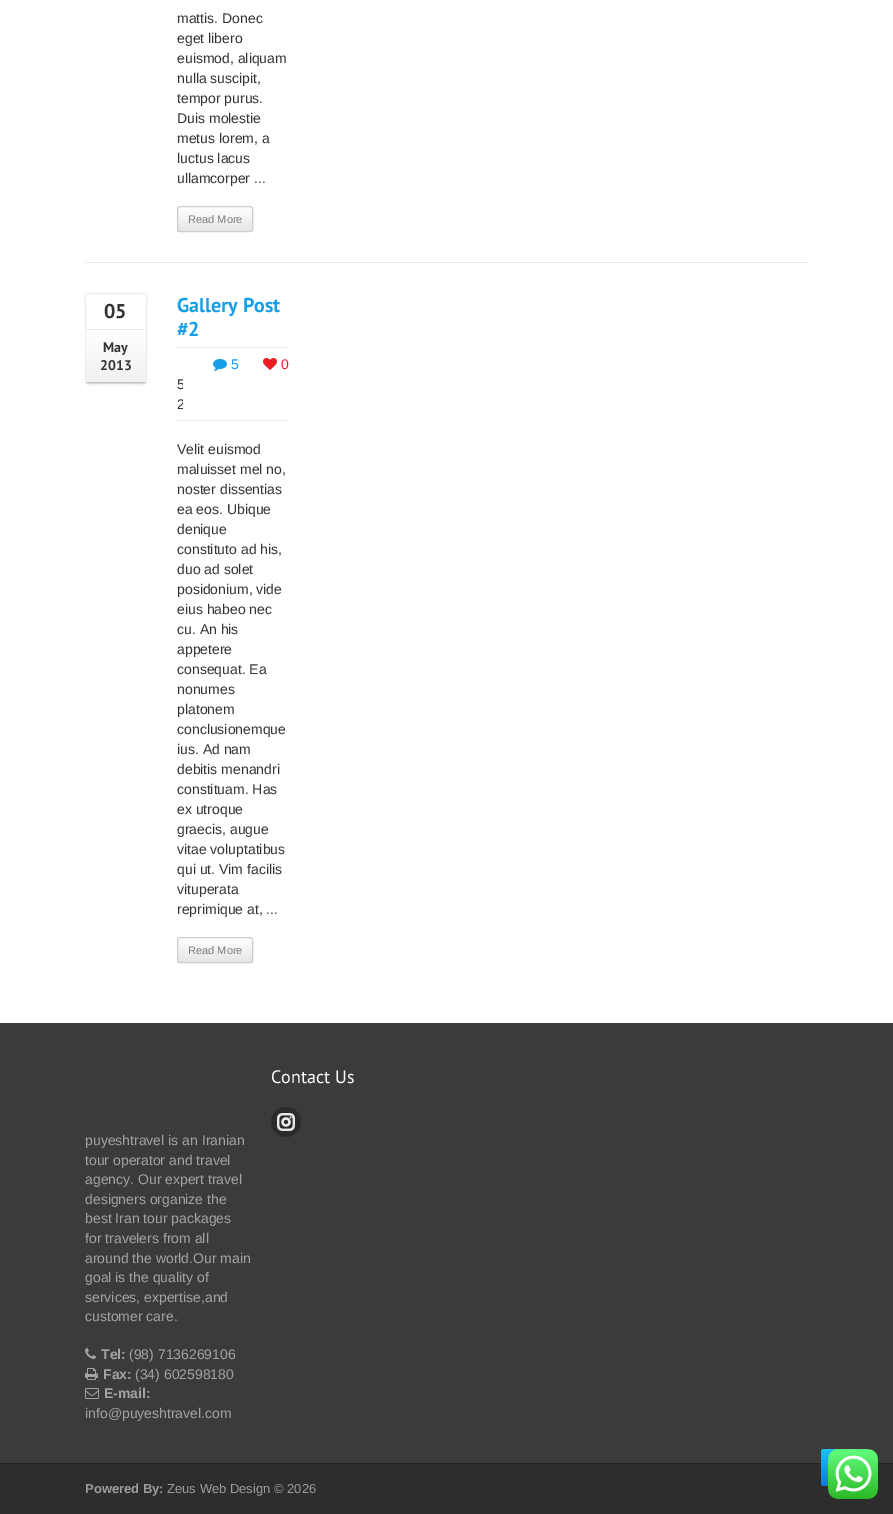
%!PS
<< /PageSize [893 1514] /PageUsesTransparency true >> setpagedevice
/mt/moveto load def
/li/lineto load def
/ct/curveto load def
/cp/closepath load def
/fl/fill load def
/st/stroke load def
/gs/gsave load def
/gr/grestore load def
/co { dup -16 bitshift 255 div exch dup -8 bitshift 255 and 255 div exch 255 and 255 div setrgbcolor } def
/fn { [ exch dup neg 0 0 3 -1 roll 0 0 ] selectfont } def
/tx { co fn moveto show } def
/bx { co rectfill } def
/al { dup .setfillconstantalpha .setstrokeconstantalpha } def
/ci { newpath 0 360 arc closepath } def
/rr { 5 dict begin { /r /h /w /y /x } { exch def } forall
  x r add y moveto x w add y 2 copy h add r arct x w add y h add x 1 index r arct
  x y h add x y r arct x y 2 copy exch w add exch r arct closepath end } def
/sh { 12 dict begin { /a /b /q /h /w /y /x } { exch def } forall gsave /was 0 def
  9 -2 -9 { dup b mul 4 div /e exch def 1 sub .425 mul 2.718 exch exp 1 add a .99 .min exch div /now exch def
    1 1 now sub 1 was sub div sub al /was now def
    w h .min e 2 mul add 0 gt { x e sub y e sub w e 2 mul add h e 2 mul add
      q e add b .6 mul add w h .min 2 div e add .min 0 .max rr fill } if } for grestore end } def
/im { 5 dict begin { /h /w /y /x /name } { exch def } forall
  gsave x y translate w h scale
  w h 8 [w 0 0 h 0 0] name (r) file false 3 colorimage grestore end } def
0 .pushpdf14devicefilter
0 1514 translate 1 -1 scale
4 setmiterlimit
0 0 893 1514 16#FFFFFF bx
85 262 724 1 16#EBEBEB bx
gs
177 0 112 232 rectclip
177 229 mt 177 236 188 233 192 233 ct 238 233 li 242 233 253 236 253 229 ct 253 231 252 232 250 232 ct 180 232 li 178 232 177 231 177 229 ct cp fl
gr
gs
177 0 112 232 rectclip
16#000000 co
177 208 76 26 3 1 .05 sh
gr
gs
177 206 76 26 3 rr clip newpath
gs 177 207 mt 253 207 li 253 231 li 177 231 li cp clip newpath
<< /ShadingType 2 /ColorSpace /DeviceRGB /Coords [215 207 215 231] /Extend [true true] /Function << /FunctionType 2 /Domain [0 1] /C0 [1 1 1] /C1 [.902 .902 .902] /N 1 >> >> shfill gr
gr
16#CCCCCC co
177.5 206.5 75 25 2.5 rr st
16#EDEDED co
85 380 mt 85 386 93 384 97 384 ct 135 384 li 139 384 147 386 147 380 ct 147 382 146 383 144 383 ct 88 383 li 86 383 85 382 85 380 ct cp fl
0.03 al
16#000000 co
85 380 mt 85 388 88 386 97 386 ct 135 386 li 144 386 147 388 147 380 ct 147 382 146 383 144 383 ct 88 383 li 86 383 85 382 85 380 ct cp fl
1 al
16#FFFFFF co
85 293 62 90 3 rr fl
0.22 al
16#000000 co
146 382 mt 144 382.5 li 88 382.5 li 86 382 li st
1 al
16#EBEBEB co
86 382 mt 85.5 380 li 85.5 310 li 85.5 292 81.5 293.5 97.5 293.5 ct 134.5 293.5 li 150.5 293.5 146.5 292 146.5 310 ct 146.5 380 li 146 382 li st
gs 86 330 mt 146 330 li 146 379 li 146 380.5 144.5 382 143 382 ct 89 382 li 87.5 382 86 380.5 86 379 ct cp clip newpath
<< /ShadingType 2 /ColorSpace /DeviceRGB /Coords [116 330 116 382] /Extend [true true] /Function << /FunctionType 2 /Domain [0 1] /C0 [1 1 1] /C1 [.945 .945 .945] /N 1 >> >> shfill gr
86 329 60 1 16#EBEBEB bx
177 347 112 1 16#EBEBEB bx
177 420 112 1 16#EBEBEB bx
(media/1.raw) 213 359 14 12 im
(media/2.raw) 263 358 14 12 im
gs
177 293 112 670 rectclip
177 960 mt 177 967 188 964 192 964 ct 238 964 li 242 964 253 967 253 960 ct 253 962 252 963 250 963 ct 180 963 li 178 963 177 962 177 960 ct cp fl
gr
gs
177 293 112 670 rectclip
16#000000 co
177 939 76 26 3 1 .05 sh
gr
gs
177 937 76 26 3 rr clip newpath
gs 177 938 mt 253 938 li 253 962 li 177 962 li cp clip newpath
<< /ShadingType 2 /ColorSpace /DeviceRGB /Coords [215 938 215 962] /Extend [true true] /Function << /FunctionType 2 /Domain [0 1] /C0 [1 1 1] /C1 [.902 .902 .902] /N 1 >> >> shfill gr
gr
16#CCCCCC co
177.5 937.5 75 25 2.5 rr st
0 1023 893 440 16#3B3B3B bx
16#2B2B2B co
286 1122 15 ci fl
(media/3.raw) 277 1113 18 18 im
(media/4.raw) 85 1348 11 11 im
(media/5.raw) 85 1368 13 12 im
(media/6.raw) 85 1388 14 11 im
0 1464 893 50 16#2D2D2D bx
0 1463 893 1 16#222222 bx
16#2A2A2A co
821 1482 mt 821 1488 827 1487 832 1487 ct 858 1487 li 862 1487 868 1488 868 1482 ct 868 1484 866 1486 864 1486 ct 825 1486 li 823 1486 821 1484 821 1482 ct cp fl
0.95 al
16#0E7ADD co
821 1449 47 37 4 rr fl
gs 821 1449 47 37 4 rr clip newpath
<< /ShadingType 2 /ColorSpace /DeviceRGB /Coords [845 1449 845 1486] /Extend [true true] /Function << /FunctionType 2 /Domain [0 1] /C0 [.122 .769 .941] /C1 [.055 .478 .867] /N 1 >> >> shfill gr
1 al
(media/7.raw) 828 1449 50 50 im
(mattis. Donec) 177 23 /LiberationSans-Regular 14 16#333333 tx
(eget libero) 177 43 /LiberationSans-Regular 14 16#333333 tx
(euismod, aliquam) 177 63 /LiberationSans-Regular 14 16#333333 tx
(nulla suscipit,) 177 83 /LiberationSans-Regular 14 16#333333 tx
(tempor purus.) 177 103 /LiberationSans-Regular 14 16#333333 tx
(Duis molestie) 177 123 /LiberationSans-Regular 14 16#333333 tx
(metus lorem, a) 177 143 /LiberationSans-Regular 14 16#333333 tx
(luctus lacus) 177 163 /LiberationSans-Regular 14 16#333333 tx
(ullamcorper ...) 177 183 /LiberationSans-Regular 14 16#333333 tx
(Read More) 188 223 /LiberationSans-Regular 11 16#7C7C7C tx
(05) 104 318 /PTSans-Bold 20 16#333333 tx
(May) 103 352 /PTSans-Bold 14 16#333333 tx
(2013) 100 370 /PTSans-Bold 14 16#333333 tx
(Gallery Post) 177 312 /PTSans-Bold 20 16#169FE6 tx
(#2) 177 336 /PTSans-Bold 20 16#169FE6 tx
(5) 231 369 /LiberationSans-Regular 14 16#169FE6 tx
(0) 281 369 /LiberationSans-Regular 14 16#ED1C24 tx
gs
177 354 6 60 rectclip
(5) 177 389 /LiberationSans-Regular 14 16#333333 tx
(2) 177 409 /LiberationSans-Regular 14 16#333333 tx
gr
(Velit euismod) 177 454 /LiberationSans-Regular 14 16#333333 tx
(maluisset mel no,) 177 474 /LiberationSans-Regular 14 16#333333 tx
(noster dissentias) 177 494 /LiberationSans-Regular 14 16#333333 tx
(ea eos. Ubique) 177 514 /LiberationSans-Regular 14 16#333333 tx
(denique) 177 534 /LiberationSans-Regular 14 16#333333 tx
(constituto ad his,) 177 554 /LiberationSans-Regular 14 16#333333 tx
(duo ad solet) 177 574 /LiberationSans-Regular 14 16#333333 tx
(posidonium, vide) 177 594 /LiberationSans-Regular 14 16#333333 tx
(eius habeo nec) 177 614 /LiberationSans-Regular 14 16#333333 tx
(cu. An his) 177 634 /LiberationSans-Regular 14 16#333333 tx
(appetere) 177 654 /LiberationSans-Regular 14 16#333333 tx
(consequat. Ea) 177 674 /LiberationSans-Regular 14 16#333333 tx
(nonumes) 177 694 /LiberationSans-Regular 14 16#333333 tx
(platonem) 177 714 /LiberationSans-Regular 14 16#333333 tx
(conclusionemque) 177 734 /LiberationSans-Regular 14 16#333333 tx
(ius. Ad nam) 177 754 /LiberationSans-Regular 14 16#333333 tx
(debitis menandri) 177 774 /LiberationSans-Regular 14 16#333333 tx
(constituam. Has) 177 794 /LiberationSans-Regular 14 16#333333 tx
(ex utroque) 177 814 /LiberationSans-Regular 14 16#333333 tx
(graecis, augue) 177 834 /LiberationSans-Regular 14 16#333333 tx
(vitae voluptatibus) 177 854 /LiberationSans-Regular 14 16#333333 tx
(qui ut. Vim facilis) 177 874 /LiberationSans-Regular 14 16#333333 tx
(vituperata) 177 894 /LiberationSans-Regular 14 16#333333 tx
(reprimique at, ...) 177 914 /LiberationSans-Regular 14 16#333333 tx
(Read More) 188 954 /LiberationSans-Regular 11 16#7C7C7C tx
(Contact Us) 271 1083 /PTSans-Regular 18 16#FDFDFD tx
(puyeshtravel is an Iranian) 85 1145 /LiberationSans-Regular 14 16#A3A3A3 tx
(tour operator and travel) 85 1165 /LiberationSans-Regular 14 16#A3A3A3 tx
(agency. Our expert travel) 85 1184 /LiberationSans-Regular 14 16#A3A3A3 tx
(designers organize the) 85 1204 /LiberationSans-Regular 14 16#A3A3A3 tx
(best Iran tour packages) 85 1223 /LiberationSans-Regular 14 16#A3A3A3 tx
(for travelers from all) 85 1243 /LiberationSans-Regular 14 16#A3A3A3 tx
(around the world.Our main) 85 1263 /LiberationSans-Regular 14 16#A3A3A3 tx
(goal is the quality of) 85 1282 /LiberationSans-Regular 14 16#A3A3A3 tx
(services, expertise,and) 85 1302 /LiberationSans-Regular 14 16#A3A3A3 tx
(customer care.) 85 1321 /LiberationSans-Regular 14 16#A3A3A3 tx
(Tel:) 101 1359 /LiberationSans-Bold 14 16#A3A3A3 tx
(\(98\) 7136269106) 129 1359 /LiberationSans-Regular 14 16#A3A3A3 tx
(Fax:) 103 1379 /LiberationSans-Bold 14 16#A3A3A3 tx
(\(34\) 602598180) 135 1379 /LiberationSans-Regular 14 16#A3A3A3 tx
(E-mail:) 104 1398 /LiberationSans-Bold 14 16#A3A3A3 tx
(info@puyeshtravel.com) 85 1418 /LiberationSans-Regular 14 16#A3A3A3 tx
(Powered By:) 85 1493 /LiberationSans-Bold 13 16#9C9C9C tx
(Zeus Web Design © 2026) 167 1493 /LiberationSans-Regular 13 16#9C9C9C tx
.poppdf14devicefilter showpage
